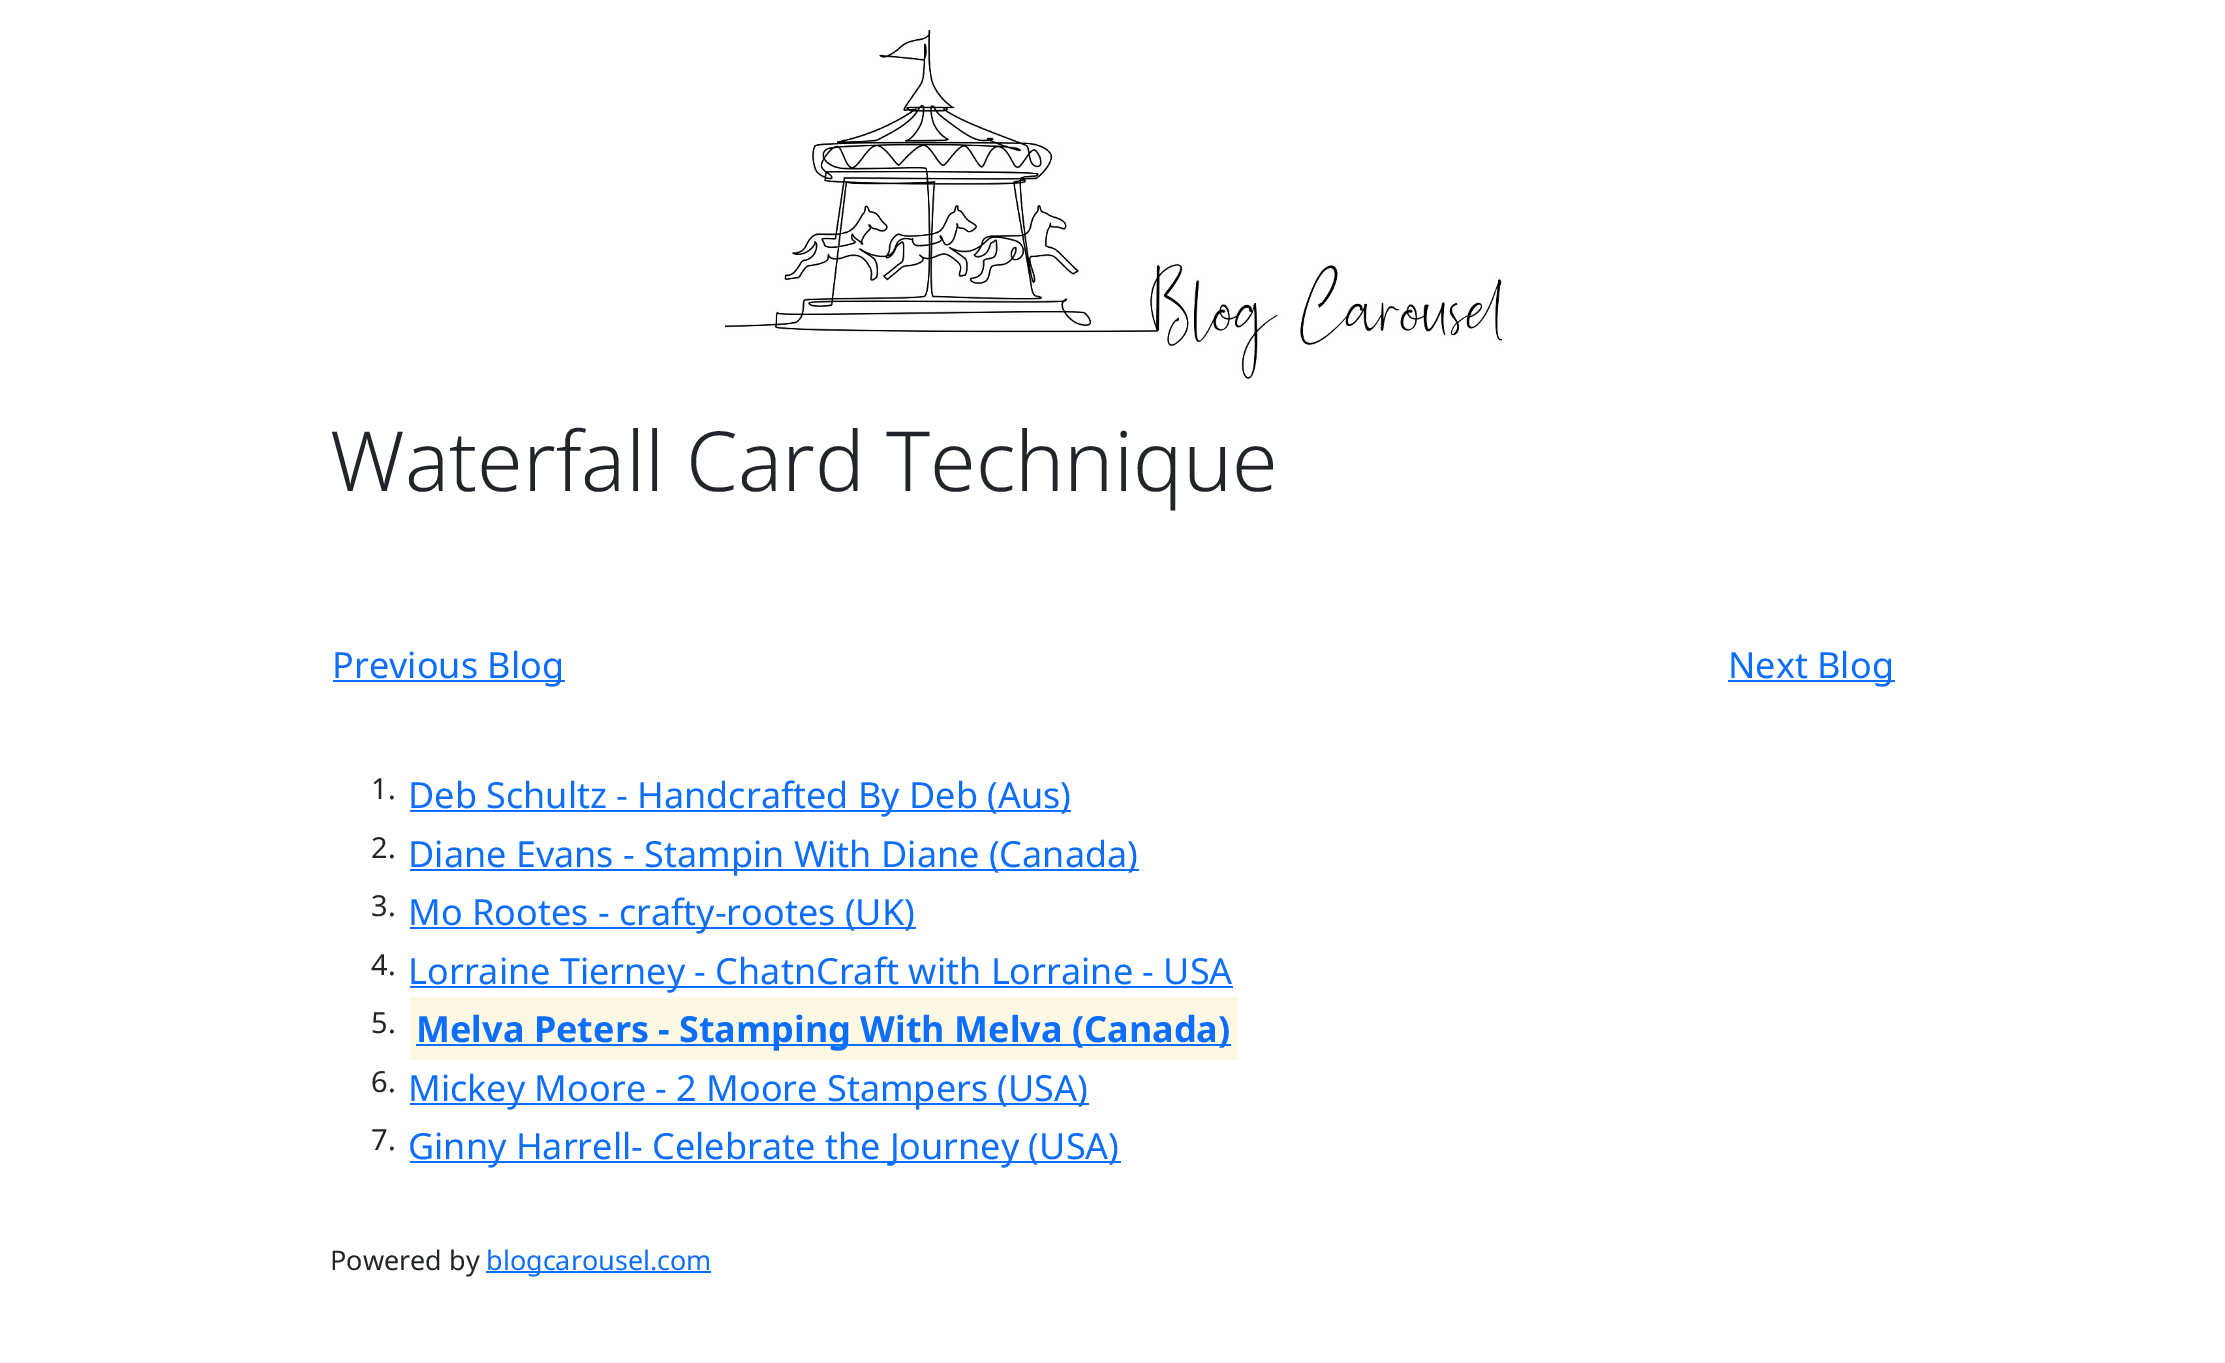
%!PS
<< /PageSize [2225 1363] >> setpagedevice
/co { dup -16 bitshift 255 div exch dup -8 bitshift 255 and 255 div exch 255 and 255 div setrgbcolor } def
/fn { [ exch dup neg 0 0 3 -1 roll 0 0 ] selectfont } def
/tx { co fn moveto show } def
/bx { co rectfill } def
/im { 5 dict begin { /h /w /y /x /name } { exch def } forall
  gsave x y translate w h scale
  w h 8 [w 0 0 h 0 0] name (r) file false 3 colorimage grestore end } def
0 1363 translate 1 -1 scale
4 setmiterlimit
0 0 2225 1363 16#FFFFFF bx
(media/1.raw) 725 30 778 351 im
333 680 232 2 16#0D6EFD bx
1728 680 167 2 16#0D6EFD bx
410 810 661 2 16#0D6EFD bx
410 869 729 2 16#0D6EFD bx
410 927 506 2 16#0D6EFD bx
410 986 823 2 16#0D6EFD bx
410 997 828 63 16#FCF8E3 bx
416 1044 815 2 16#0D6EFD bx
410 1103 679 2 16#0D6EFD bx
410 1161 711 2 16#0D6EFD bx
486 1271 225 2 16#0D6EFD bx
(Waterfall Card Technique) 330 491 /NotoSans-Light 82.9 16#212529 tx
(Previous Blog) 332 678 /NotoSans-Regular 36 16#0D6EFD tx
(Next Blog) 1728 678 /NotoSans-Regular 36 16#0D6EFD tx
(1.) 371 799 /NotoSans-Regular 29 16#212529 tx
(Deb Schultz - Handcrafted By Deb \(Aus\)) 408 808 /NotoSans-Regular 36 16#0D6EFD tx
(2.) 371 858 /NotoSans-Regular 29 16#212529 tx
(Diane Evans - Stampin With Diane \(Canada\)) 408 867 /NotoSans-Regular 36 16#0D6EFD tx
(3.) 371 916 /NotoSans-Regular 29 16#212529 tx
(Mo Rootes - crafty-rootes \(UK\)) 408 925 /NotoSans-Regular 36 16#0D6EFD tx
(4.) 371 975 /NotoSans-Regular 29 16#212529 tx
(Lorraine Tierney - ChatnCraft with Lorraine - USA) 408 984 /NotoSans-Regular 36 16#0D6EFD tx
(5.) 371 1033 /NotoSans-Regular 29 16#212529 tx
(Melva Peters - Stamping With Melva \(Canada\)) 416 1042 /NotoSans-Bold 36 16#0D6EFD tx
(6.) 371 1092 /NotoSans-Regular 29 16#212529 tx
(Mickey Moore - 2 Moore Stampers \(USA\)) 408 1101 /NotoSans-Regular 36 16#0D6EFD tx
(7.) 371 1150 /NotoSans-Regular 29 16#212529 tx
(Ginny Harrell- Celebrate the Journey \(USA\)) 408 1159 /NotoSans-Regular 36 16#0D6EFD tx
(Powered by) 330 1270 /NotoSans-Regular 27 16#212529 tx
(blogcarousel.com) 486 1270 /NotoSans-Regular 27 16#0D6EFD tx
showpage
